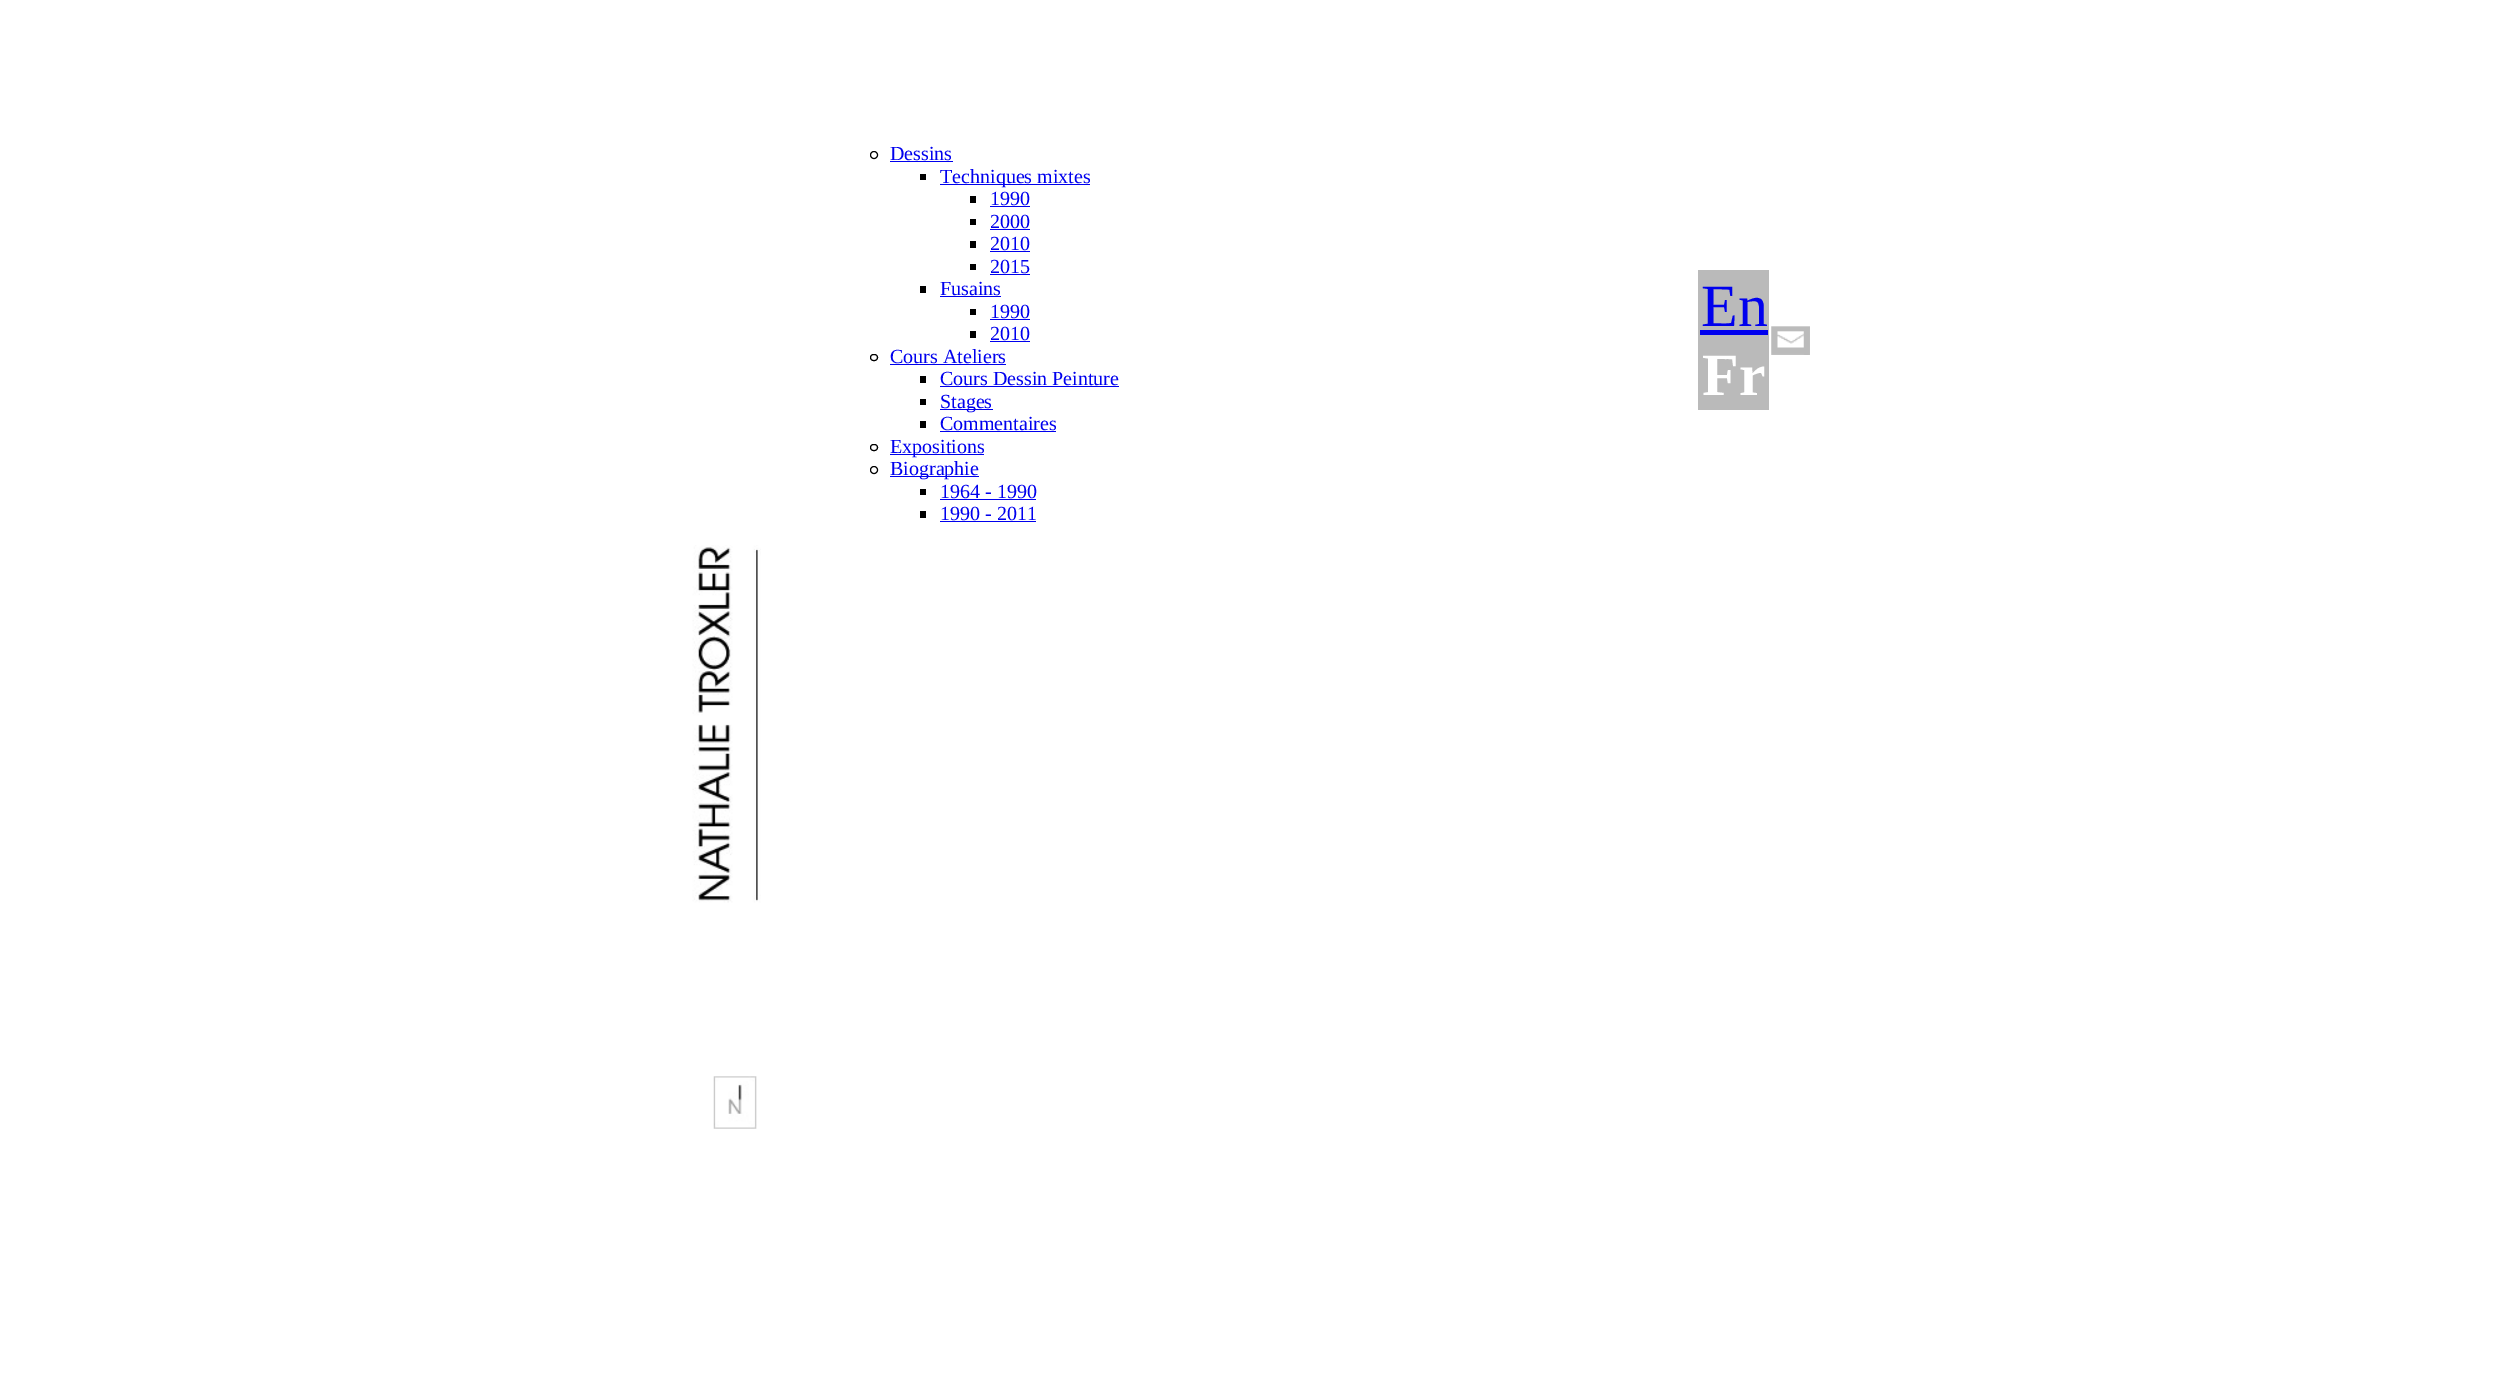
%!PS
<< /PageSize [2496 1395] >> setpagedevice
/st/stroke load def
/co { dup -16 bitshift 255 div exch dup -8 bitshift 255 and 255 div exch 255 and 255 div setrgbcolor } def
/fn { [ exch dup neg 0 0 3 -1 roll 0 0 ] selectfont } def
/tx { co fn moveto show } def
/bx { co rectfill } def
/ci { newpath 0 360 arc closepath } def
/rr { 5 dict begin { /r /h /w /y /x } { exch def } forall
  x r add y moveto x w add y 2 copy h add r arct x w add y h add x 1 index r arct
  x y h add x y r arct x y 2 copy exch w add exch r arct closepath end } def
/im { 5 dict begin { /h /w /y /x /name } { exch def } forall
  gsave x y translate w h scale
  w h 8 [w 0 0 h 0 0] name (r) file false 3 colorimage grestore end } def
0 1395 translate 1 -1 scale
4 setmiterlimit
0 0 2496 1395 16#FFFFFF bx
16#000000 co
874 155 3.5 ci st
890 161 63 1 16#0000EE bx
920 174 6 6 16#000000 bx
940 184 150 1 16#0000EE bx
970 196 6 7 16#000000 bx
990 206 40 1 16#0000EE bx
970 219 6 6 16#000000 bx
990 229 40 1 16#0000EE bx
970 241 6 7 16#000000 bx
990 251 40 1 16#0000EE bx
970 264 6 6 16#000000 bx
990 274 40 1 16#0000EE bx
920 286 6 7 16#000000 bx
940 296 61 1 16#0000EE bx
970 309 6 6 16#000000 bx
990 319 40 1 16#0000EE bx
970 331 6 7 16#000000 bx
990 341 40 1 16#0000EE bx
16#000000 co
870.5 354.5 7 6 3 rr st
890 364 116 1 16#0000EE bx
920 376 6 7 16#000000 bx
940 386 179 1 16#0000EE bx
920 399 6 6 16#000000 bx
940 409 53 1 16#0000EE bx
920 421 6 7 16#000000 bx
940 431 116 1 16#0000EE bx
16#000000 co
870.5 444.5 7 6 3 rr st
890 454 94 1 16#0000EE bx
16#000000 co
874 470 3.5 ci st
890 476 89 1 16#0000EE bx
920 489 6 6 16#000000 bx
940 499 96 1 16#0000EE bx
920 511 6 7 16#000000 bx
940 521 96 1 16#0000EE bx
1698 270 71 140 16#BABABA bx
1700 330 68 5 16#0000EE bx
(media/1.raw) 1771 326 39 29 im
(media/2.raw) 692 545 69 358 im
(media/3.raw) 713 1076 44 53 im
(Dessins) 890 160 /LiberationSerif-Regular 20 16#0000EE tx
(Techniques mixtes) 940 183 /LiberationSerif-Regular 20 16#0000EE tx
(1990) 990 205 /LiberationSerif-Regular 20 16#0000EE tx
(2000) 990 228 /LiberationSerif-Regular 20 16#0000EE tx
(2010) 990 250 /LiberationSerif-Regular 20 16#0000EE tx
(2015) 990 273 /LiberationSerif-Regular 20 16#0000EE tx
(Fusains) 940 295 /LiberationSerif-Regular 20 16#0000EE tx
(1990) 990 318 /LiberationSerif-Regular 20 16#0000EE tx
(2010) 990 340 /LiberationSerif-Regular 20 16#0000EE tx
(Cours Ateliers) 890 363 /LiberationSerif-Regular 20 16#0000EE tx
(Cours Dessin Peinture) 940 385 /LiberationSerif-Regular 20 16#0000EE tx
(Stages) 940 408 /LiberationSerif-Regular 20 16#0000EE tx
(Commentaires) 940 430 /LiberationSerif-Regular 20 16#0000EE tx
(Expositions) 890 453 /LiberationSerif-Regular 20 16#0000EE tx
(Biographie) 890 475 /LiberationSerif-Regular 20 16#0000EE tx
(1964 - 1990) 940 498 /LiberationSerif-Regular 20 16#0000EE tx
(1990 - 2011) 940 520 /LiberationSerif-Regular 20 16#0000EE tx
(En) 1701 326 /LiberationSerif-Regular 60 16#0000EE tx
(Fr) 1702 395 /LiberationSerif-Bold 60 16#FFFFFF tx
showpage
